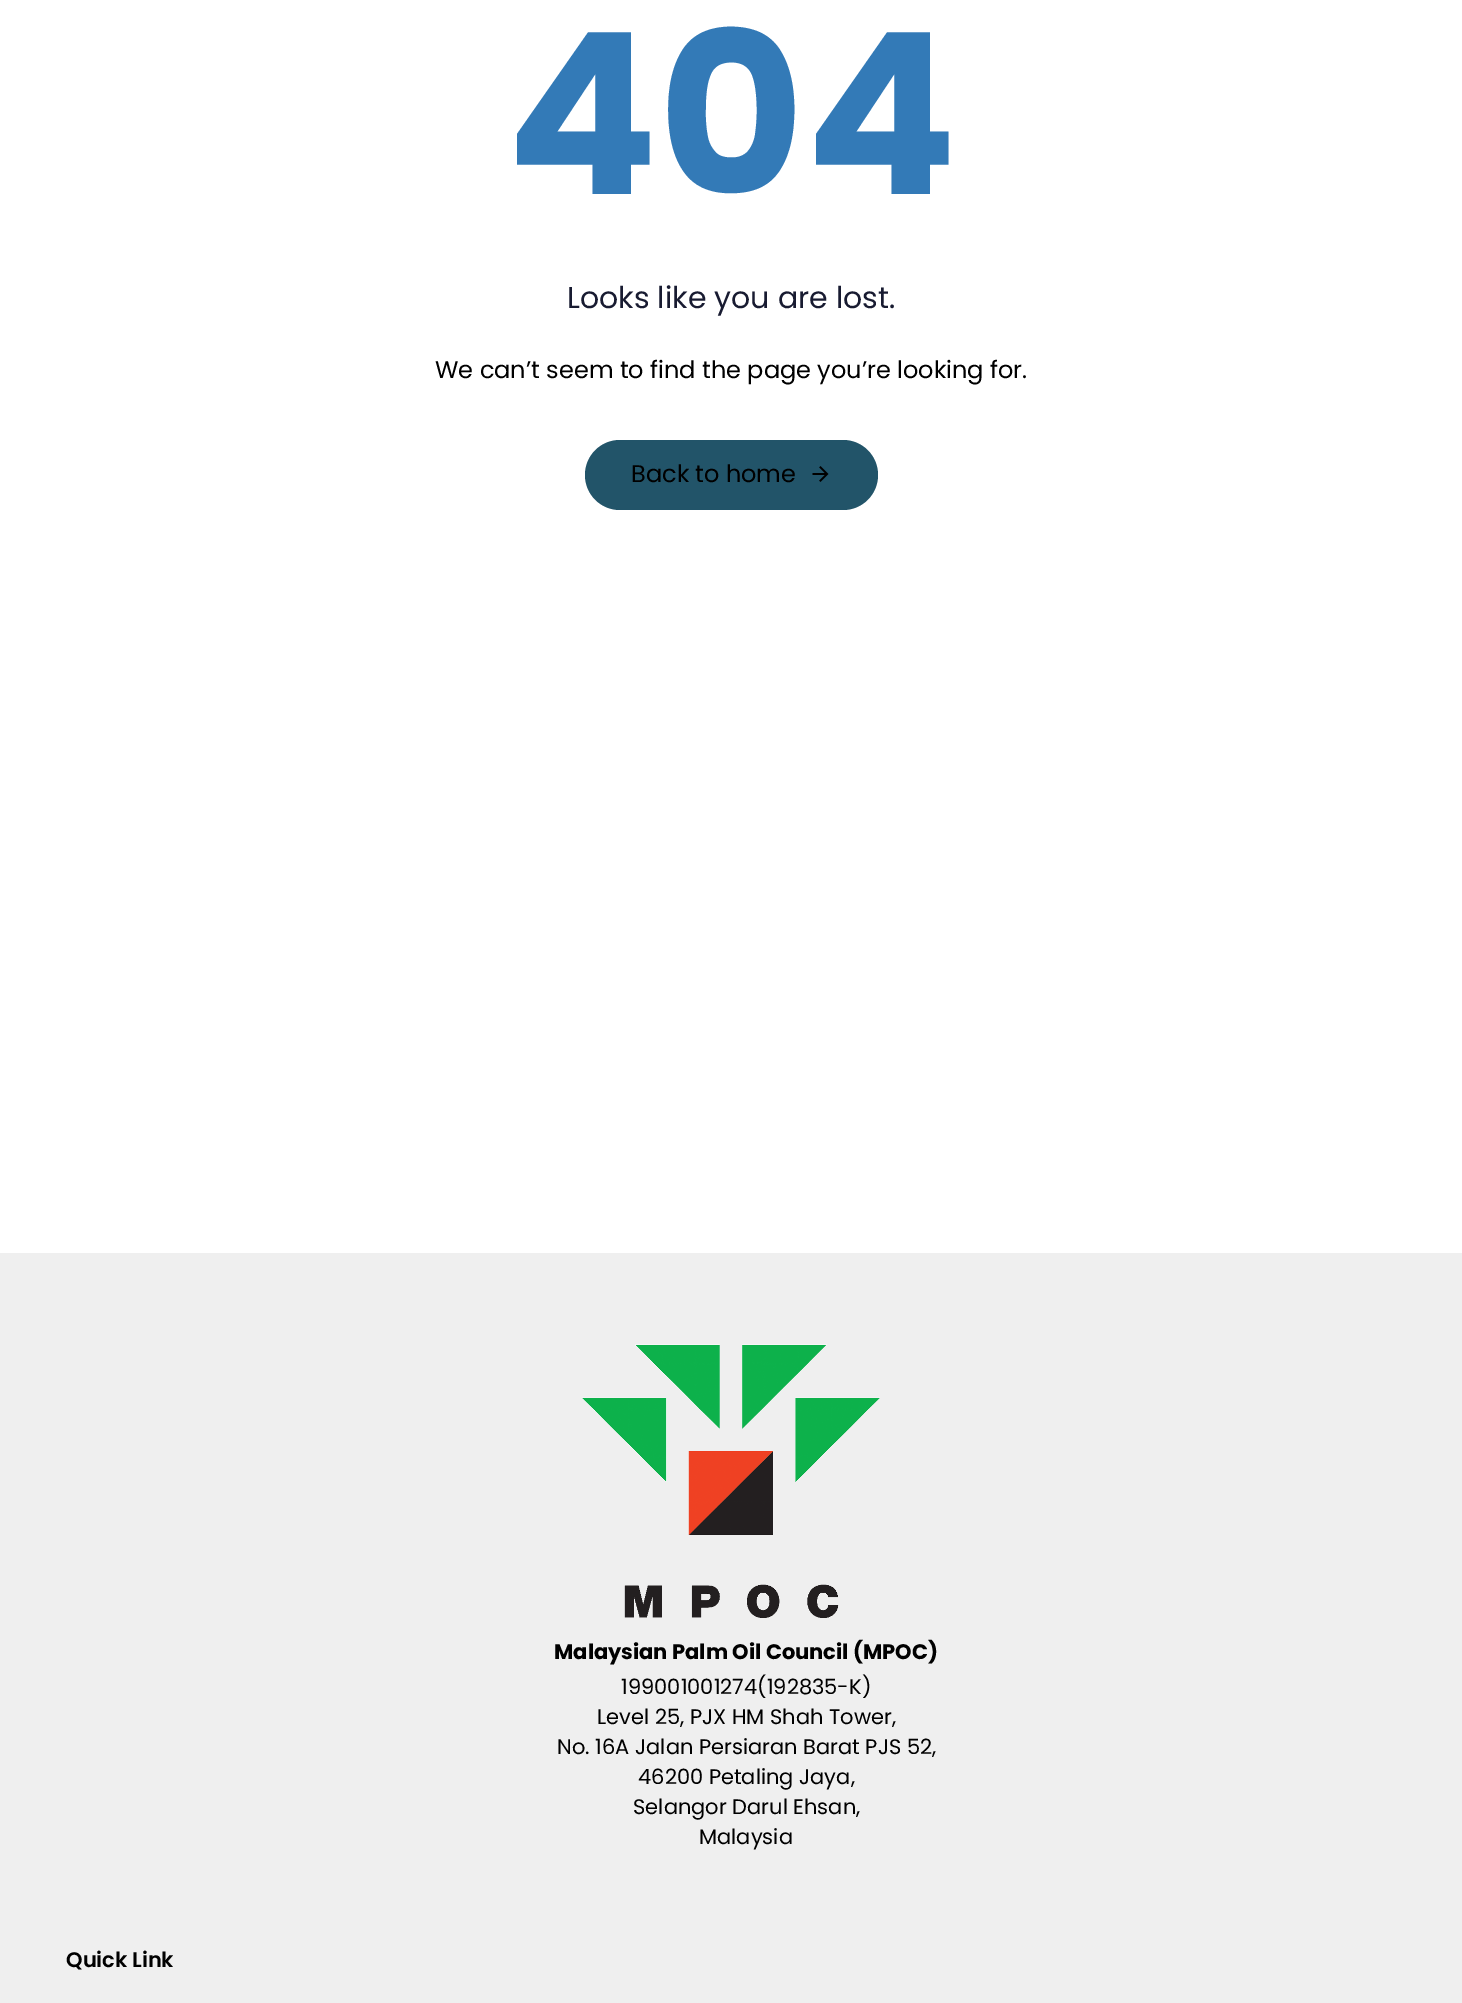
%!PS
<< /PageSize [1462 2003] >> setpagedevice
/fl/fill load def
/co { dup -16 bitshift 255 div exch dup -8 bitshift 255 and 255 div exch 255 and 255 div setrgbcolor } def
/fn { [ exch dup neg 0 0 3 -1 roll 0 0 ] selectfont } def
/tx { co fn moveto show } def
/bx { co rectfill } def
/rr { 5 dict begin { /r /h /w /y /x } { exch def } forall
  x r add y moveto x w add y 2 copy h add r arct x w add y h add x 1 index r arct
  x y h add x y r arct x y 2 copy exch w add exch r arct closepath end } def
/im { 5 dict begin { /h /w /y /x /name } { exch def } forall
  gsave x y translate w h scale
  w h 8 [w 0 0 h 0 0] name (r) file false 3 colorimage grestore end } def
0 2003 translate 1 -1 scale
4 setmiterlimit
0 0 1462 2003 16#FFFFFF bx
16#225469 co
585 440 293 70 35 rr fl
(media/1.raw) 812 466 17 16 im
0 1253 1462 750 16#EFEFEF bx
(media/2.raw) 582 1344 298 274 im
(404) 506 194 /Poppins-Bold 225 16#337AB7 tx
(Looks like you are lost.) 567 308 /Poppins-Regular 30 16#181B31 tx
(We can’t seem to find the page you’re looking for.) 435 378 /Poppins-Regular 24 16#000000 tx
(Back to home) 631 482 /Poppins-Regular 24 16#000000 tx
(Malaysian Palm Oil Council \(MPOC\)) 554 1659 /Poppins-Bold 21 16#000000 tx
(199001001274\(192835-K\)) 621 1694 /Poppins-Regular 21 16#000000 tx
(Level 25, PJX HM Shah Tower,) 597 1724 /Poppins-Regular 21 16#000000 tx
(No. 16A Jalan Persiaran Barat PJS 52,) 557 1754 /Poppins-Regular 21 16#000000 tx
(46200 Petaling Jaya,) 638 1784 /Poppins-Regular 21 16#000000 tx
(Selangor Darul Ehsan,) 633 1814 /Poppins-Regular 21 16#000000 tx
(Malaysia) 699 1844 /Poppins-Regular 21 16#000000 tx
(Quick Link) 66 1967 /Poppins-SemiBold 21 16#000000 tx
showpage
